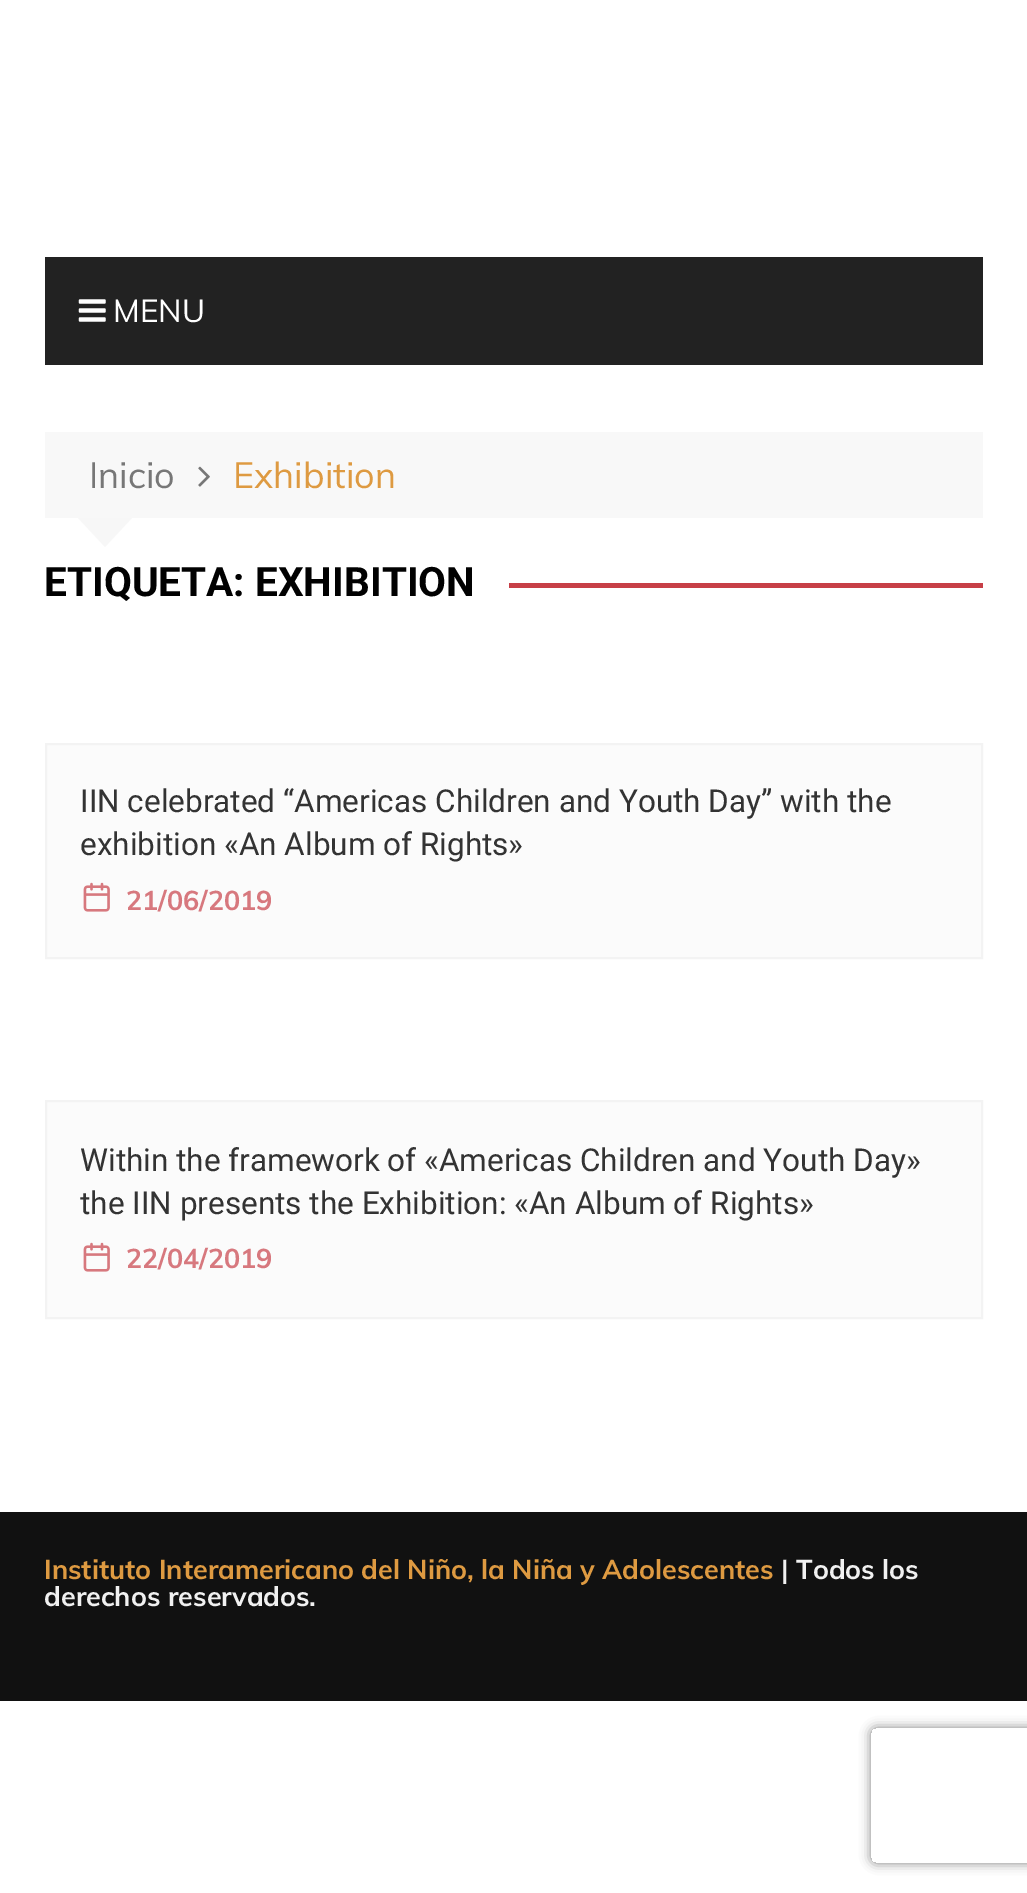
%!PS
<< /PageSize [1027 1893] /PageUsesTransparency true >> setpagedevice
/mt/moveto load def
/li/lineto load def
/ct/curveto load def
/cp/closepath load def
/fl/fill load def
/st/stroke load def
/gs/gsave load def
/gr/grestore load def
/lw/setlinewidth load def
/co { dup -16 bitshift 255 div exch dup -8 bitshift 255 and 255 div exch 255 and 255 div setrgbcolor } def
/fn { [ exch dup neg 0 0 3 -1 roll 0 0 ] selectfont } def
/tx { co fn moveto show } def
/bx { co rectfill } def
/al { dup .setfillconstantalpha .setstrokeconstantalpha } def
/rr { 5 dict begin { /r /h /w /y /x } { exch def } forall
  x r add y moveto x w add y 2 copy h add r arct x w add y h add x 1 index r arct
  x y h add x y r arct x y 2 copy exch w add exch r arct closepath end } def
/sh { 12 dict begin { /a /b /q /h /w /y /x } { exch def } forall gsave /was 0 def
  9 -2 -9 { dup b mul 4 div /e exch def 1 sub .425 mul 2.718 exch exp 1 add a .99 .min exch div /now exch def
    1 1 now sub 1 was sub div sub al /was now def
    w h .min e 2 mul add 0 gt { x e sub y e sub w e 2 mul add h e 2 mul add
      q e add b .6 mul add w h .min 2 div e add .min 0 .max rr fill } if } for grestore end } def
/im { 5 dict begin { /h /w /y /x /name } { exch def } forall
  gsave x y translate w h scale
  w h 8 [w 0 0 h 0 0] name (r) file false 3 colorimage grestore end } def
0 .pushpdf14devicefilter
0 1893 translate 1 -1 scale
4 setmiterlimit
0 0 1027 1893 16#FFFFFF bx
45 257 938 108 16#222222 bx
(media/1.raw) 78 299 28 23 im
45 432 938 86 16#F8F8F8 bx
(media/2.raw) 198 466 12 21 im
16#F7F7F7 co
78 518 mt 132 518 li 105 547 li cp fl
509 583 474 5 16#C73F47 bx
16#FBFBFB co
46 744 mt 982 744 li 982 958 li 46 958 li cp gs fl gr
16#F3F3F3 co
2 lw
st
(media/3.raw) 83 882 27 30 im
16#FBFBFB co
46 1101 mt 982 1101 li 982 1318 li 46 1318 li cp gs fl gr
16#F3F3F3 co
st
(media/3.raw) 83 1242 27 30 im
0 1512 1027 189 16#111111 bx
gs
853 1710 mt 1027 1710 li 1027 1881 li 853 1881 li cp 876 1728 mt 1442 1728 li 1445 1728 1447 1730 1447 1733 ct 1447 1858 li 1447 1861 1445 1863 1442 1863 ct 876 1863 li 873 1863 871 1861 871 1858 ct 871 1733 li 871 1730 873 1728 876 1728 ct cp eoclip newpath
16#808080 co
871 1728 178 135 5 5.5 1 sh
gr
(MENU) 113 322 /Muli-Regular 31.5 16#FFFFFF tx
(Inicio) 89 488 /Muli-Regular 36 16#777777 tx
(Exhibition) 233 488 /Muli-Regular 36 16#DE9A41 tx
(ETIQUETA: EXHIBITION) 44 596 /Roboto-Bold 40.5 16#010101 tx
(IIN celebrated “Americas Children and Youth Day” with the) 80 812 /Roboto-Regular 31.5 16#333333 tx
(exhibition «An Album of Rights») 80 855 /Roboto-Regular 31.5 16#333333 tx
(21/06/2019) 126 910 /Muli-Bold 27 16#D7787E tx
(Within the framework of «Americas Children and Youth Day») 80 1171 /Roboto-Regular 31.5 16#333333 tx
(the IIN presents the Exhibition: «An Album of Rights») 80 1214 /Roboto-Regular 31.5 16#333333 tx
(22/04/2019) 126 1268 /Muli-Bold 27 16#D7787E tx
(Instituto Interamericano del Niño, la Niña y Adolescentes) 44 1579 /Muli-Bold 27 16#DE9A41 tx
(| Todos los) 781 1579 /Muli-Bold 27 16#F1F1F1 tx
(derechos reservados.) 44 1606 /Muli-Bold 27 16#F1F1F1 tx
.poppdf14devicefilter showpage
